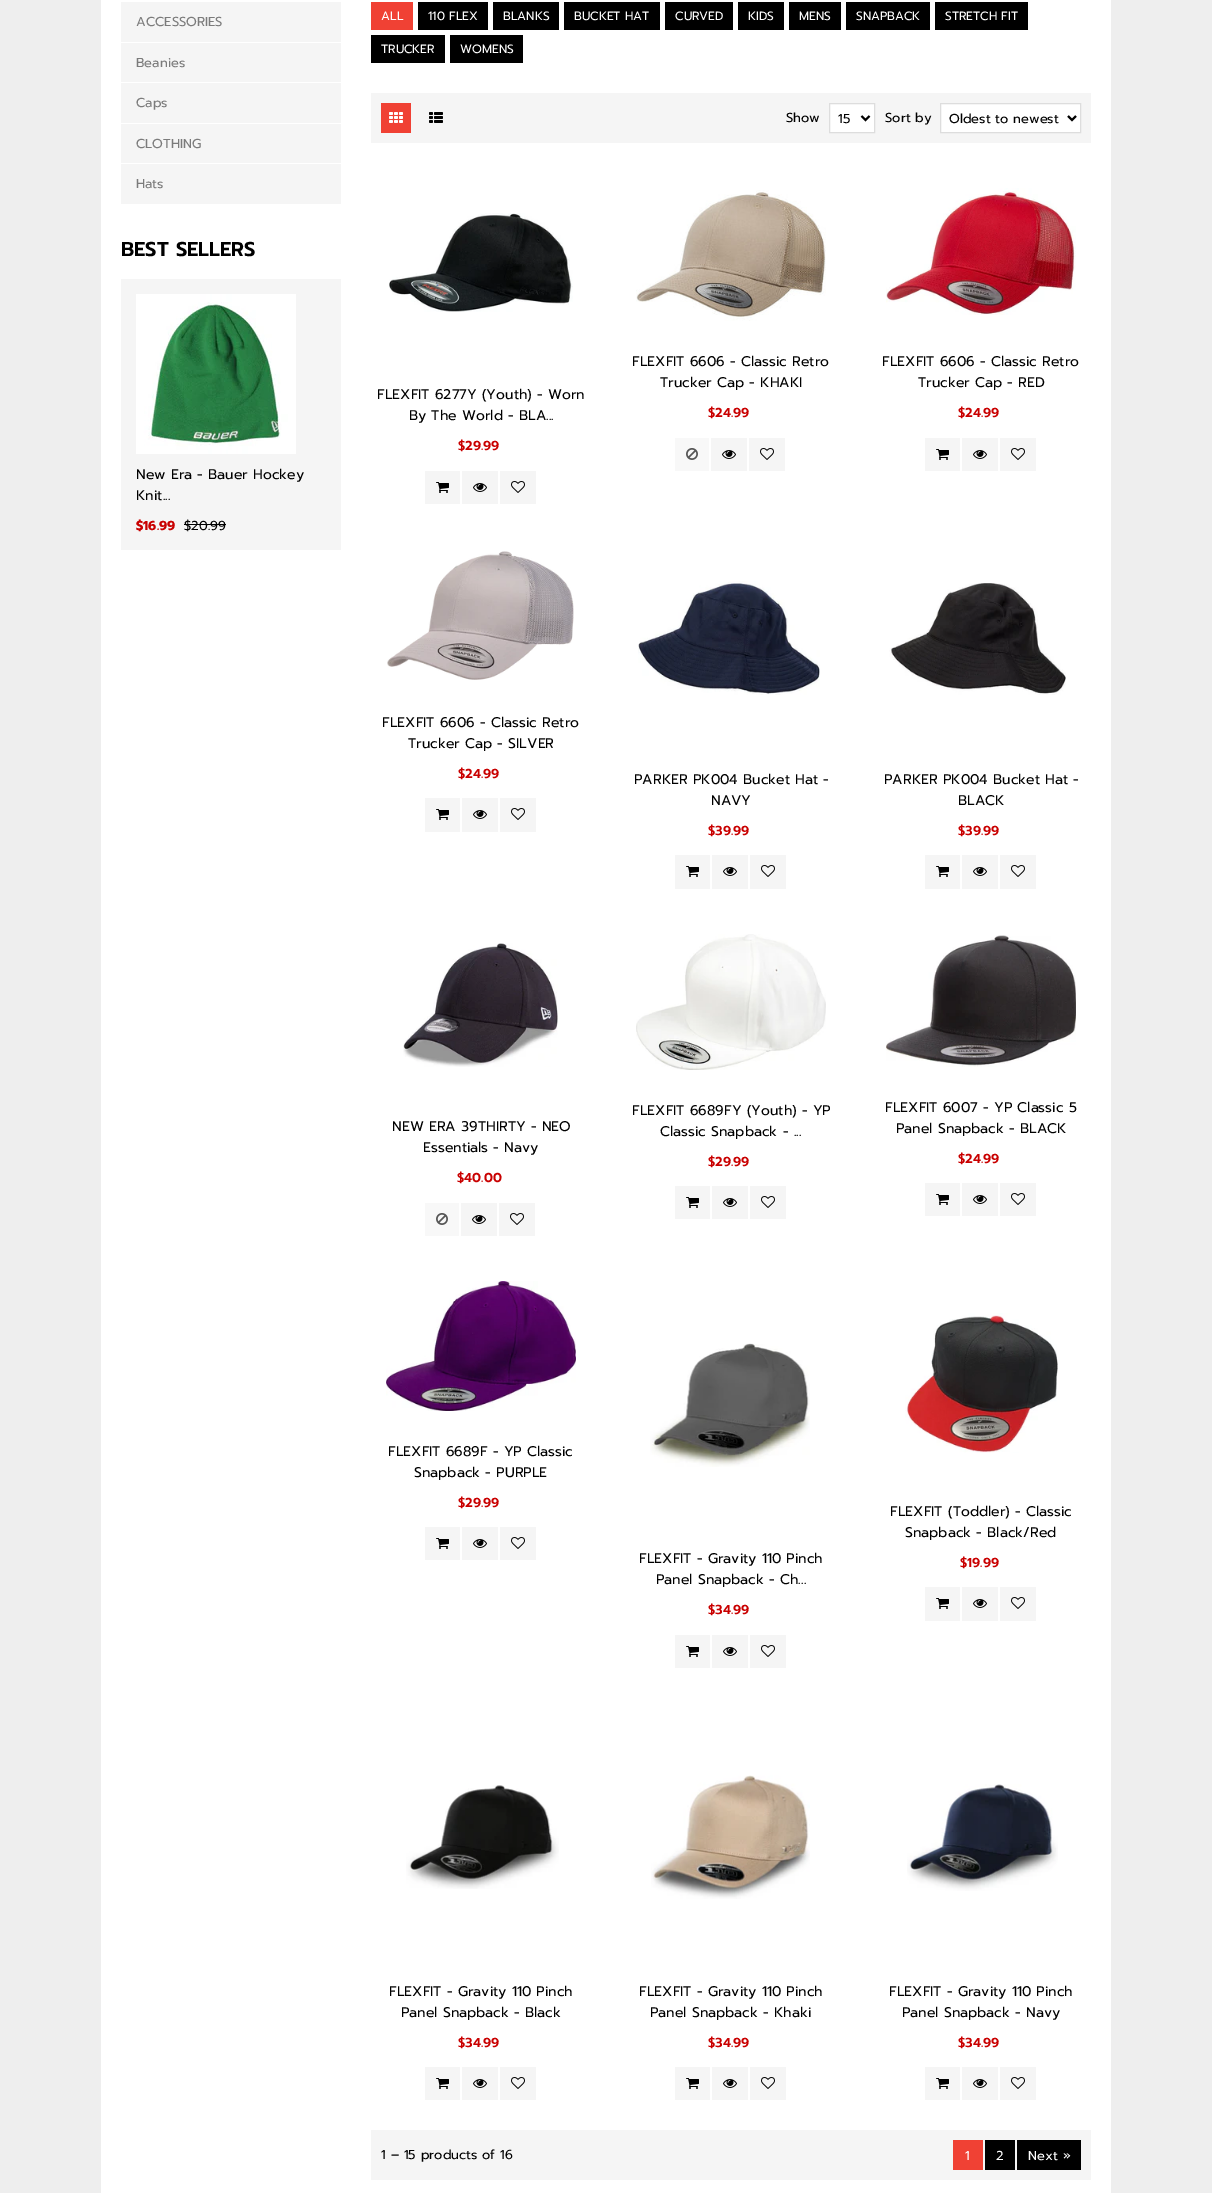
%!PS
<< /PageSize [1212 2193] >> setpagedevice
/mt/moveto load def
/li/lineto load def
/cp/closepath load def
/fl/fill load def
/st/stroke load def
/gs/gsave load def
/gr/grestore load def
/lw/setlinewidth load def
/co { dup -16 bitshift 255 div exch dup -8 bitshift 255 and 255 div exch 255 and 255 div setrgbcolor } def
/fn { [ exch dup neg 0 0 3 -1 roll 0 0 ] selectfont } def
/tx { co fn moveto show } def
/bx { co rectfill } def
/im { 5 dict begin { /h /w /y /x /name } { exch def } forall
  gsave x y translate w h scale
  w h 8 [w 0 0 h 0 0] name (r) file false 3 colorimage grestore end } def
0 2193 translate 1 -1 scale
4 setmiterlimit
0 0 1212 2193 16#EEEEEE bx
101 0 1010 2193 16#FFFFFF bx
121 2 220 202 16#F5F5F5 bx
121 42 220 1 16#FFFFFF bx
121 82 220 1 16#FFFFFF bx
121 123 220 1 16#FFFFFF bx
121 163 220 1 16#FFFFFF bx
121 279 220 271 16#F5F5F5 bx
(media/1.raw) 136 294 160 160 im
184 524 42 1 16#000000 bx
371 2 42 28 16#F04134 bx
418 2 70 28 16#000000 bx
493 2 66 28 16#000000 bx
564 2 96 28 16#000000 bx
665 2 68 28 16#000000 bx
738 2 46 28 16#000000 bx
789 2 52 28 16#000000 bx
846 2 84 28 16#000000 bx
935 2 93 28 16#000000 bx
371 35 74 28 16#000000 bx
450 35 73 28 16#000000 bx
371 93 720 50 16#F5F5F5 bx
381 103 30 30 16#F04134 bx
(media/2.raw) 389 112 14 11 im
(media/3.raw) 429 112 14 11 im
16#FFFFFF co
829.5 103.5 mt 874.5 103.5 li 874.5 132.5 li 829.5 132.5 li cp gs fl gr
16#DDDDDD co
st
16#000000 co
2 lw
861.5 116 mt 865.5 120 li 869.5 116 li st
16#FFFFFF co
940.5 103.5 mt 1080.5 103.5 li 1080.5 132.5 li 940.5 132.5 li cp gs fl gr
16#DDDDDD co
1 lw
st
16#000000 co
2 lw
1068 116 mt 1072 120 li 1076 116 li st
(media/4.raw) 389 213 184 99 im
425 471 35 33 16#F5F5F5 bx
(media/5.raw) 436 482 13 11 im
462 471 36 33 16#F5F5F5 bx
(media/6.raw) 473 483 14 9 im
500 471 36 33 16#F5F5F5 bx
(media/7.raw) 511 481 14 12 im
(media/8.raw) 636 190 190 131 im
675 438 34 33 16#F8F8F8 bx
(media/9.raw) 686 448 12 12 im
711 438 36 33 16#F5F5F5 bx
(media/6.raw) 722 450 14 9 im
749 438 36 33 16#F5F5F5 bx
(media/7.raw) 760 448 14 12 im
(media/10.raw) 886 188 190 127 im
925 438 35 33 16#F5F5F5 bx
(media/5.raw) 936 449 13 11 im
962 438 36 33 16#F5F5F5 bx
(media/6.raw) 973 450 14 9 im
1000 438 36 33 16#F5F5F5 bx
(media/7.raw) 1011 448 14 12 im
(media/11.raw) 387 551 187 129 im
425 798 35 34 16#F5F5F5 bx
(media/5.raw) 436 809 13 11 im
462 798 36 34 16#F5F5F5 bx
(media/6.raw) 473 810 14 9 im
500 798 36 34 16#F5F5F5 bx
(media/7.raw) 511 808 14 12 im
(media/12.raw) 638 581 182 114 im
675 855 35 34 16#F5F5F5 bx
(media/5.raw) 686 866 13 11 im
712 855 36 34 16#F5F5F5 bx
(media/6.raw) 723 867 14 9 im
750 855 36 34 16#F5F5F5 bx
(media/7.raw) 761 865 14 12 im
(media/13.raw) 889 583 177 112 im
925 855 35 34 16#F5F5F5 bx
(media/5.raw) 936 866 13 11 im
962 855 36 34 16#F5F5F5 bx
(media/6.raw) 973 867 14 9 im
1000 855 36 34 16#F5F5F5 bx
(media/7.raw) 1011 865 14 12 im
(media/14.raw) 403 943 155 124 im
425 1203 34 33 16#F8F8F8 bx
(media/9.raw) 436 1213 12 12 im
461 1203 36 33 16#F5F5F5 bx
(media/6.raw) 472 1215 14 9 im
499 1203 36 33 16#F5F5F5 bx
(media/7.raw) 510 1213 14 12 im
(media/15.raw) 636 934 190 136 im
675 1186 35 33 16#F5F5F5 bx
(media/5.raw) 686 1197 13 11 im
712 1186 36 33 16#F5F5F5 bx
(media/6.raw) 723 1198 14 9 im
750 1186 36 33 16#F5F5F5 bx
(media/7.raw) 761 1196 14 12 im
(media/16.raw) 886 935 190 132 im
925 1183 35 33 16#F5F5F5 bx
(media/5.raw) 936 1194 13 11 im
962 1183 36 33 16#F5F5F5 bx
(media/6.raw) 973 1195 14 9 im
1000 1183 36 33 16#F5F5F5 bx
(media/7.raw) 1011 1193 14 12 im
(media/17.raw) 386 1281 190 130 im
425 1527 35 33 16#F5F5F5 bx
(media/5.raw) 436 1538 13 11 im
462 1527 36 33 16#F5F5F5 bx
(media/6.raw) 473 1539 14 9 im
500 1527 36 33 16#F5F5F5 bx
(media/7.raw) 511 1537 14 12 im
(media/18.raw) 905 1313 153 140 im
925 1587 35 34 16#F5F5F5 bx
(media/5.raw) 936 1598 13 11 im
962 1587 36 34 16#F5F5F5 bx
(media/6.raw) 973 1599 14 9 im
1000 1587 36 34 16#F5F5F5 bx
(media/7.raw) 1011 1597 14 12 im
(media/19.raw) 650 1343 160 124 im
675 1635 35 33 16#F5F5F5 bx
(media/5.raw) 686 1646 13 11 im
712 1635 36 33 16#F5F5F5 bx
(media/6.raw) 723 1647 14 9 im
750 1635 36 33 16#F5F5F5 bx
(media/7.raw) 761 1645 14 12 im
(media/20.raw) 406 1785 153 104 im
425 2067 35 33 16#F5F5F5 bx
(media/5.raw) 436 2078 13 11 im
462 2067 36 33 16#F5F5F5 bx
(media/6.raw) 473 2079 14 9 im
500 2067 36 33 16#F5F5F5 bx
(media/7.raw) 511 2077 14 12 im
(media/21.raw) 651 1775 159 124 im
675 2067 35 33 16#F5F5F5 bx
(media/5.raw) 686 2078 13 11 im
712 2067 36 33 16#F5F5F5 bx
(media/6.raw) 723 2079 14 9 im
750 2067 36 33 16#F5F5F5 bx
(media/7.raw) 761 2077 14 12 im
(media/22.raw) 907 1784 151 107 im
925 2067 35 33 16#F5F5F5 bx
(media/5.raw) 936 2078 13 11 im
962 2067 36 33 16#F5F5F5 bx
(media/6.raw) 973 2079 14 9 im
1000 2067 36 33 16#F5F5F5 bx
(media/7.raw) 1011 2077 14 12 im
371 2130 720 50 16#F5F5F5 bx
953 2140 30 30 16#F04134 bx
985 2140 30 30 16#000000 bx
1017 2140 64 30 16#000000 bx
(ACCESSORIES) 136 26 /Prompt-Regular 13 16#7B7B7B tx
(Beanies) 136 67 /Prompt-Regular 13 16#7B7B7B tx
(Caps) 136 107 /Prompt-Regular 13 16#7B7B7B tx
(CLOTHING) 136 148 /Prompt-Regular 13 16#7B7B7B tx
(Hats) 136 188 /Prompt-Regular 13 16#7B7B7B tx
(BEST SELLERS) 121 256 /Prompt-SemiBold 20 16#000000 tx
(New Era - Bauer Hockey) 136 479 /Prompt-Regular 14 16#000000 tx
(Knit...) 136 500 /Prompt-Regular 14 16#000000 tx
($16.99) 136 530 /Prompt-Bold 13 16#C90000 tx
($20.99) 184 530 /Prompt-Regular 13 16#000000 tx
(ALL) 381 20 /Prompt-Regular 12 16#FFFFFF tx
(110 FLEX) 428 20 /Prompt-Regular 12 16#FFFFFF tx
(BLANKS) 503 20 /Prompt-Regular 12 16#FFFFFF tx
(BUCKET HAT) 574 20 /Prompt-Regular 12 16#FFFFFF tx
(CURVED) 675 20 /Prompt-Regular 12 16#FFFFFF tx
(KIDS) 748 20 /Prompt-Regular 12 16#FFFFFF tx
(MENS) 799 20 /Prompt-Regular 12 16#FFFFFF tx
(SNAPBACK) 856 20 /Prompt-Regular 12 16#FFFFFF tx
(STRETCH FIT) 945 20 /Prompt-Regular 12 16#FFFFFF tx
(TRUCKER) 381 53 /Prompt-Regular 12 16#FFFFFF tx
(WOMENS) 460 53 /Prompt-Regular 12 16#FFFFFF tx
(Show) 786 122 /Prompt-Regular 13 16#000000 tx
(15) 838 123 /Prompt-Regular 13 16#000000 tx
(Sort by) 885 122 /Prompt-Regular 13 16#000000 tx
(Oldest to newest) 949 123 /Prompt-Regular 13 16#000000 tx
(FLEXFIT 6277Y \(Youth\) - Worn) 377 399 /Prompt-Regular 14 16#000000 tx
(By The World - BLA...) 409 420 /Prompt-Regular 14 16#000000 tx
($29.99) 458 450 /Prompt-SemiBold 13 16#C90000 tx
(FLEXFIT 6606 - Classic Retro) 632 366 /Prompt-Regular 14 16#000000 tx
(Trucker Cap - KHAKI) 660 387 /Prompt-Regular 14 16#000000 tx
($24.99) 708 417 /Prompt-SemiBold 13 16#C90000 tx
(FLEXFIT 6606 - Classic Retro) 882 366 /Prompt-Regular 14 16#000000 tx
(Trucker Cap - RED) 918 387 /Prompt-Regular 14 16#000000 tx
($24.99) 958 417 /Prompt-SemiBold 13 16#C90000 tx
(FLEXFIT 6606 - Classic Retro) 382 727 /Prompt-Regular 14 16#000000 tx
(Trucker Cap - SILVER) 408 748 /Prompt-Regular 14 16#000000 tx
($24.99) 458 778 /Prompt-SemiBold 13 16#C90000 tx
(PARKER PK004 Bucket Hat -) 634 784 /Prompt-Regular 14 16#000000 tx
(NAVY) 711 805 /Prompt-Regular 14 16#000000 tx
($39.99) 708 835 /Prompt-SemiBold 13 16#C90000 tx
(PARKER PK004 Bucket Hat -) 884 784 /Prompt-Regular 14 16#000000 tx
(BLACK) 958 805 /Prompt-Regular 14 16#000000 tx
($39.99) 958 835 /Prompt-SemiBold 13 16#C90000 tx
(NEW ERA 39THIRTY - NEO) 392 1131 /Prompt-Regular 14 16#000000 tx
(Essentials - Navy) 423 1152 /Prompt-Regular 14 16#000000 tx
($40.00) 457 1182 /Prompt-SemiBold 13 16#C90000 tx
(FLEXFIT 6689FY \(Youth\) - YP) 632 1115 /Prompt-Regular 14 16#000000 tx
(Classic Snapback - ...) 660 1136 /Prompt-Regular 14 16#000000 tx
($29.99) 708 1166 /Prompt-SemiBold 13 16#C90000 tx
(FLEXFIT 6007 - YP Classic 5) 885 1112 /Prompt-Regular 14 16#000000 tx
(Panel Snapback - BLACK) 896 1133 /Prompt-Regular 14 16#000000 tx
($24.99) 958 1163 /Prompt-SemiBold 13 16#C90000 tx
(FLEXFIT 6689F - YP Classic) 388 1456 /Prompt-Regular 14 16#000000 tx
(Snapback - PURPLE) 414 1477 /Prompt-Regular 14 16#000000 tx
($29.99) 458 1507 /Prompt-SemiBold 13 16#C90000 tx
(FLEXFIT \(Toddler\) - Classic) 890 1516 /Prompt-Regular 14 16#000000 tx
(Snapback - Black/Red) 905 1537 /Prompt-Regular 14 16#000000 tx
($19.99) 960 1567 /Prompt-SemiBold 13 16#C90000 tx
(FLEXFIT - Gravity 110 Pinch) 639 1563 /Prompt-Regular 14 16#000000 tx
(Panel Snapback - Ch...) 656 1584 /Prompt-Regular 14 16#000000 tx
($34.99) 708 1614 /Prompt-SemiBold 13 16#C90000 tx
(FLEXFIT - Gravity 110 Pinch) 389 1996 /Prompt-Regular 14 16#000000 tx
(Panel Snapback - Black) 401 2017 /Prompt-Regular 14 16#000000 tx
($34.99) 458 2047 /Prompt-SemiBold 13 16#C90000 tx
(FLEXFIT - Gravity 110 Pinch) 639 1996 /Prompt-Regular 14 16#000000 tx
(Panel Snapback - Khaki) 650 2017 /Prompt-Regular 14 16#000000 tx
($34.99) 708 2047 /Prompt-SemiBold 13 16#C90000 tx
(FLEXFIT - Gravity 110 Pinch) 889 1996 /Prompt-Regular 14 16#000000 tx
(Panel Snapback - Navy) 902 2017 /Prompt-Regular 14 16#000000 tx
($34.99) 958 2047 /Prompt-SemiBold 13 16#C90000 tx
(1 – 15 products of 16) 381 2159 /Prompt-Regular 13 16#000000 tx
(1) 965 2160 /Prompt-Regular 13 16#FFFFFF tx
(2) 996 2160 /Prompt-Regular 13 16#FFFFFF tx
(Next ») 1028 2160 /Prompt-Regular 13 16#FFFFFF tx
showpage
